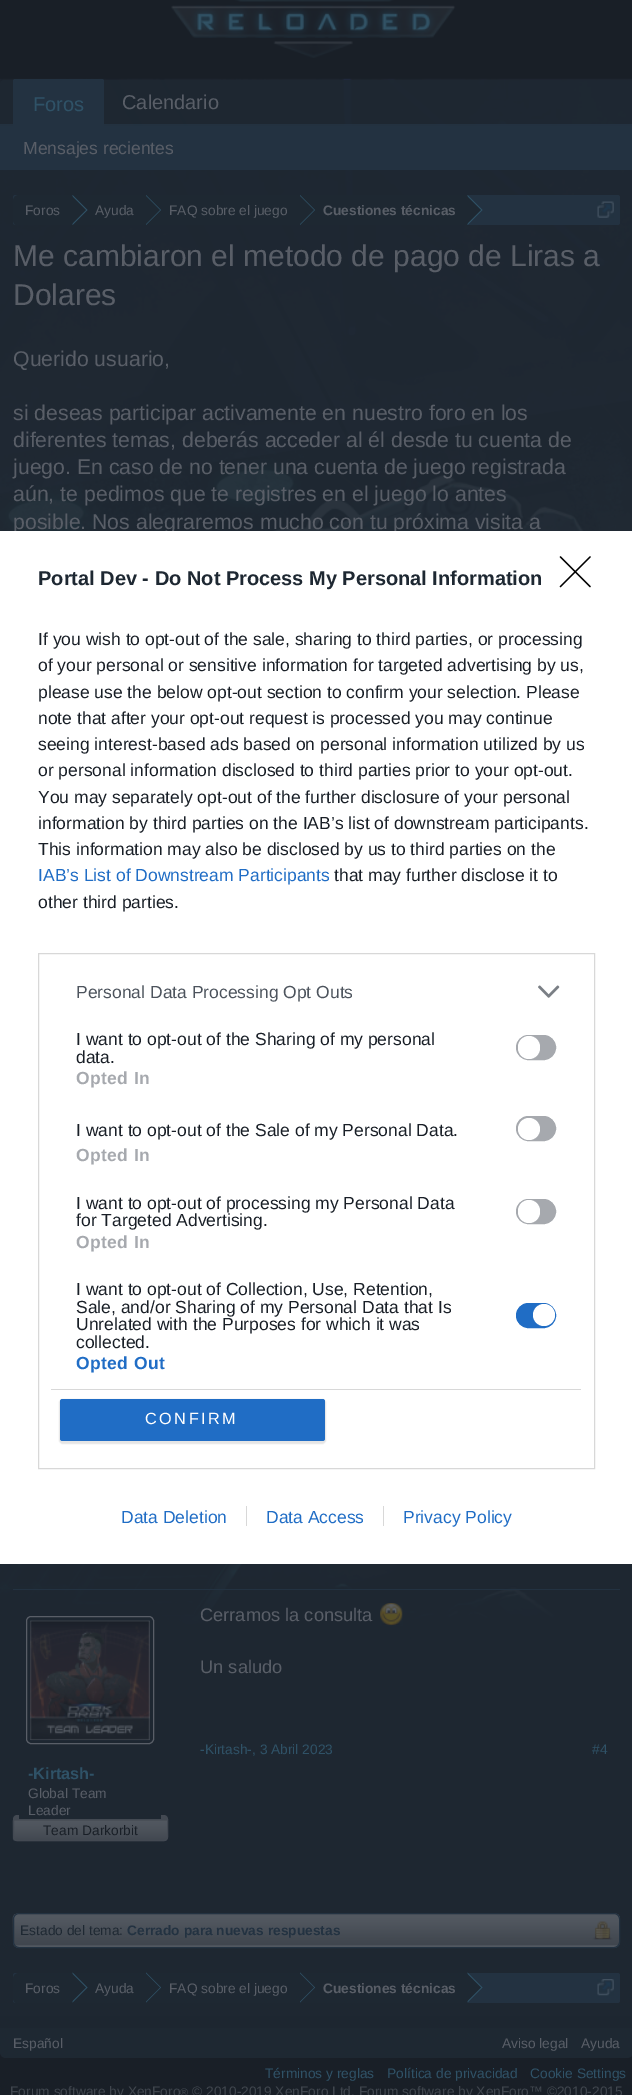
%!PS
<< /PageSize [632 2095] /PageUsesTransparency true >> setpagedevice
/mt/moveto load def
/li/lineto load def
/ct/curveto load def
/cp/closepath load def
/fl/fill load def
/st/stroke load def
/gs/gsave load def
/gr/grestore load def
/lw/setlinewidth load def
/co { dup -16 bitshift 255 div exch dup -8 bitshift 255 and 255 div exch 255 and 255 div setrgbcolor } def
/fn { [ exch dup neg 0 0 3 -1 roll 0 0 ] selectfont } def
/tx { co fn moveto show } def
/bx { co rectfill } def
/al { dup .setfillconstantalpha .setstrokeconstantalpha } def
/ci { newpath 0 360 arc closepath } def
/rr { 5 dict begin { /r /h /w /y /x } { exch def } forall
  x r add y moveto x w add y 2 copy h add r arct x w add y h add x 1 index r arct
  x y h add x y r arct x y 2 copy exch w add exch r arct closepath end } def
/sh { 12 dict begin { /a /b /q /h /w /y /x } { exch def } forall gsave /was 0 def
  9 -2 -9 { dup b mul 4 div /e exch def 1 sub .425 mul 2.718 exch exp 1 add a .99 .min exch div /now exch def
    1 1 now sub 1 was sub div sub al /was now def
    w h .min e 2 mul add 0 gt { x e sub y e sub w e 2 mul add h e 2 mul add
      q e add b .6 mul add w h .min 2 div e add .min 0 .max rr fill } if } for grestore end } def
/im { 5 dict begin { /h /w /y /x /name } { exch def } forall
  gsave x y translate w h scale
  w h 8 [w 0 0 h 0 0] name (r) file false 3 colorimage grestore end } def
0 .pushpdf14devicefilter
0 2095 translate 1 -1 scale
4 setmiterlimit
0 0 632 2095 16#191F27 bx
0 2016 632 12 16#1D2630 bx
(media/1.raw) 0 78 632 1939 im
(media/2.raw) 171 0 285 58 im
0.8 al
16#1E2832 co
4 80 mt 629 80 li 631 80 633 82 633 84 ct 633 126 li 0 126 li 0 84 li 0 82 2 80 4 80 ct cp fl
0.9 al
0 124 632 2 16#233241 bx
1 al
15.5 79 mt 101.5 79 li 103 79 104 80 104 81.5 ct 104 126 li 13 126 li 13 81.5 li 13 80 14 79 15.5 79 ct cp fl
0.9 al
14 79 89 1 16#233241 bx
103 80 1 1 16#233241 bx
13 80 1 1 16#233241 bx
1 al
0 126 632 44 16#233241 bx
13 195 607 30 2.5 rr fl
gs
13 195 607 30 2.5 rr clip newpath
16#1E2832 co
19 195 mt 73 195 li 73 226 li 19 226 li 15.5 226 13 223.5 13 220 ct 13 201 li 13 197.5 15.5 195 19 195 ct cp fl
gr
73 195 395 30 16#1E2832 bx
16#2F5267 co
72.5 225 mt 72.5 195 li 87.5 210 li cp fl
16#1E2832 co
71 225 mt 71 195 li 86 210 li cp fl
16#2F5267 co
146 225 mt 146 195 li 161 210 li cp fl
16#1E2832 co
145 225 mt 145 195 li 160 210 li cp fl
16#2F5267 co
300 225 mt 300 195 li 315 210 li cp fl
16#1E2832 co
299 225 mt 299 195 li 314 210 li cp fl
16#2F5267 co
467.5 225 mt 467.5 195 li 482.5 210 li cp fl
16#1E2832 co
466 225 mt 466 195 li 481 210 li cp fl
(media/3.raw) 597 201 17 17 im
13 1589 607 1 16#233241 bx
(media/4.raw) 380 1603 23 23 im
16#595E67 co
26.5 1616.5 127 127 4.5 rr st
(media/5.raw) 30 1620 120 121 im
16#393F47 co
13 1819 mt 168 1819 li 168 1837 li 168 1839 166 1841 164 1841 ct 17 1841 li 15 1841 13 1839 13 1837 ct cp fl
(media/6.raw) 12 1820 156 22 im
16#434952 co
13.5 1819.5 mt 167.5 1819.5 li 167.5 1837 li 167.5 1839 166 1840.5 164 1840.5 ct 17 1840.5 li 15 1840.5 13.5 1839 13.5 1837 ct cp st
17 1815 mt 19 1815 li 19 1820 li 13 1820 li 13 1819 li 13 1817 15 1815 17 1815 ct cp fl
161 1815 mt 164 1815 li 166 1815 168 1817 168 1819 ct 168 1820 li 161 1820 li cp fl
16#40464E co
13 1913 607 35 6 rr fl
(media/7.raw) 12 1913 608 35 im
16#233241 co
13.5 1913.5 606 34 5.5 rr st
(media/8.raw) 592 1921 21 19 im
13 1973 607 30 2.5 rr fl
gs
13 1973 607 30 2.5 rr clip newpath
16#1E2832 co
19 1973 mt 73 1973 li 73 2004 li 19 2004 li 15.5 2004 13 2001.5 13 1998 ct 13 1979 li 13 1975.5 15.5 1973 19 1973 ct cp fl
gr
73 1973 395 30 16#1E2832 bx
16#2F5267 co
72.5 2002.5 mt 72.5 1972.5 li 87.5 1987.5 li cp fl
16#1E2832 co
71 2002.5 mt 71 1972.5 li 86 1987.5 li cp fl
16#2F5267 co
146 2002.5 mt 146 1972.5 li 161 1987.5 li cp fl
16#1E2832 co
145 2002.5 mt 145 1972.5 li 160 1987.5 li cp fl
16#2F5267 co
300 2002.5 mt 300 1972.5 li 315 1987.5 li cp fl
16#1E2832 co
299 2002.5 mt 299 1972.5 li 314 1987.5 li cp fl
16#2F5267 co
467.5 2002.5 mt 467.5 1972.5 li 482.5 1987.5 li cp fl
16#1E2832 co
466 2002.5 mt 466 1972.5 li 481 1987.5 li cp fl
(media/9.raw) 597 1979 17 17 im
0 2028 mt 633 2028 li 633 2052 li 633 2055.5 630.5 2058 627 2058 ct 6 2058 li 2.5 2058 0 2055.5 0 2052 ct cp fl
(Calendario) 122 109 /LiberationSans-Regular 20 16#595E67 tx
(Foros) 33 111 /LiberationSans-Regular 20 16#2F5267 tx
(Mensajes recientes) 23 154 /LiberationSans-Regular 17.5 16#595E67 tx
(Foros) 25 215 /LiberationSans-Regular 13.75 16#595E67 tx
(Ayuda) 95 215 /LiberationSans-Regular 13.75 16#595E67 tx
(FAQ sobre el juego) 169 215 /LiberationSans-Regular 13.75 16#595E67 tx
(Cuestiones técnicas) 323 215 /LiberationSans-Bold 13.75 16#595E67 tx
(Me cambiaron el metodo de pago de Liras a) 13 266 /LiberationSans-Regular 30 16#595E67 tx
(Dolares) 13 305 /LiberationSans-Regular 30 16#595E67 tx
(Querido usuario,) 13 366 /LiberationSans-Regular 21.25 16#595E67 tx
(si deseas participar activamente en nuestro foro en los) 13 420 /LiberationSans-Regular 21.25 16#595E67 tx
(diferentes temas, deberás acceder al él desde tu cuenta de) 13 447 /LiberationSans-Regular 21.25 16#595E67 tx
(juego. En caso de no tener una cuenta de juego registrada) 13 474 /LiberationSans-Regular 21.25 16#595E67 tx
(aún, te pedimos que te registres en el juego lo antes) 13 501 /LiberationSans-Regular 21.25 16#595E67 tx
(posible. Nos alegraremos mucho con tu próxima visita a) 13 529 /LiberationSans-Regular 21.25 16#595E67 tx
(Cerramos la consulta) 200 1621 /LiberationSans-Regular 18.25 16#595E67 tx
(Un saludo) 200 1673 /LiberationSans-Regular 18.25 16#595E67 tx
(-Kirtash-, 3 Abril 2023) 200 1754 /LiberationSans-Regular 13.75 16#2F5267 tx
(#4) 592 1754 /LiberationSans-Regular 13.75 16#2F5267 tx
(-Kirtash-) 28 1779 /LiberationSans-Bold 16.25 16#2F5267 tx
(Global Team) 28 1798 /LiberationSans-Regular 13.75 16#595E67 tx
(Leader) 28 1815 /LiberationSans-Regular 13.75 16#595E67 tx
(Team Darkorbit) 43 1835 /LiberationSans-Regular 13.75 16#191F27 tx
(Estado del tema:) 20 1935 /LiberationSans-Regular 13.75 16#1E2832 tx
(Cerrado para nuevas respuestas) 127 1935 /LiberationSans-Bold 13.75 16#233241 tx
(Foros) 25 1993 /LiberationSans-Regular 13.75 16#595E67 tx
(Ayuda) 95 1993 /LiberationSans-Regular 13.75 16#595E67 tx
(FAQ sobre el juego) 169 1993 /LiberationSans-Regular 13.75 16#595E67 tx
(Cuestiones técnicas) 323 1993 /LiberationSans-Bold 13.75 16#595E67 tx
0 531 632 1033 16#FFFFFF bx
16#000000 co
1.3 lw
1 setlinecap
1 setlinejoin
560.5 557 mt 590 586.5 li 590 557 mt 560.5 586.5 li st
(Portal Dev - Do Not Process My Personal Information) 38 585 /LiberationSans-Bold 20 16#1E2832 tx
(If you wish to opt-out of the sale, sharing to third parties, or processing) 38 645 /LiberationSans-Regular 17.5 16#191F27 tx
(of your personal or sensitive information for targeted advertising by us,) 38 671 /LiberationSans-Regular 17.5 16#191F27 tx
(please use the below opt-out section to confirm your selection. Please) 38 698 /LiberationSans-Regular 17.5 16#191F27 tx
(note that after your opt-out request is processed you may continue) 38 724 /LiberationSans-Regular 17.5 16#191F27 tx
(seeing interest-based ads based on personal information utilized by us) 38 750 /LiberationSans-Regular 17.5 16#191F27 tx
(or personal information disclosed to third parties prior to your opt-out.) 38 776 /LiberationSans-Regular 17.5 16#191F27 tx
(You may separately opt-out of the further disclosure of your personal) 38 803 /LiberationSans-Regular 17.5 16#191F27 tx
(information by third parties on the IAB’s list of downstream participants.) 38 829 /LiberationSans-Regular 17.5 16#191F27 tx
(This information may also be disclosed by us to third parties on the) 38 855 /LiberationSans-Regular 17.5 16#191F27 tx
(IAB’s List of Downstream Participants) 38 881 /LiberationSans-Regular 17.5 16#206DC5 tx
(that may further disclose it to) 334 881 /LiberationSans-Regular 17.5 16#191F27 tx
(other third parties.) 38 908 /LiberationSans-Regular 17.5 16#191F27 tx
16#D8D8D8 co
1 lw
0 setlinecap
0 setlinejoin
38.5 953.5 556 515 rectstroke
51 1389 530 1 16#D8D8D8 bx
(Personal Data Processing Opt Outs) 76 998 /LiberationSans-Regular 17.5 16#4D545D tx
(media/10.raw) 538 985 22 13 im
(I want to opt-out of the Sharing of my personal) 76 1045 /LiberationSans-Regular 17.5 16#191F27 tx
(data.) 76 1063 /LiberationSans-Regular 17.5 16#191F27 tx
16#A6A9AE co
516.5 1035.5 39 24 12 rr gs fl gr
st
16#FFFFFF co
518 1036 22 23 11 rr fl
/LiberationSans-Bold 17.5 fn
16#A6A9AE co
76 1084 mt .4 0 (Opted In) ashow
(I want to opt-out of the Sale of my Personal Data.) 76 1136 /LiberationSans-Regular 17.5 16#191F27 tx
16#A6A9AE co
516.5 1116.5 39 24 12 rr gs fl gr
st
16#FFFFFF co
529 1129 11 ci fl
/LiberationSans-Bold 17.5 fn
16#A6A9AE co
76 1161 mt .4 0 (Opted In) ashow
(I want to opt-out of processing my Personal Data) 76 1209 /LiberationSans-Regular 17.5 16#191F27 tx
(for Targeted Advertising.) 76 1226 /LiberationSans-Regular 17.5 16#191F27 tx
16#A6A9AE co
516.5 1199.5 39 24 12 rr gs fl gr
st
16#FFFFFF co
518 1200 22 23 11 rr fl
/LiberationSans-Bold 17.5 fn
16#A6A9AE co
76 1248 mt .4 0 (Opted In) ashow
(I want to opt-out of Collection, Use, Retention,) 76 1295 /LiberationSans-Regular 17.5 16#191F27 tx
(Sale, and/or Sharing of my Personal Data that Is) 76 1313 /LiberationSans-Regular 17.5 16#191F27 tx
(Unrelated with the Purposes for which it was) 76 1330 /LiberationSans-Regular 17.5 16#191F27 tx
(collected.) 76 1348 /LiberationSans-Regular 17.5 16#191F27 tx
16#206DC5 co
516.5 1303.5 39 24 12 rr gs fl gr
st
16#FFFFFF co
544 1315 11 ci fl
/LiberationSans-Bold 17.5 fn
16#206DC5 co
76 1369 mt .4 0 (Opted Out) ashow
16#000000 co
59 1399 267 45 4 .5 .1 sh
16#206DC5 co
60 1399 265 42 2.5 rr fl
/LiberationSans-Regular 16.25 fn
16#FFFFFF co
145 1424 mt 2.5 0 (CONFIRM) ashow
(Data Deletion) 121 1523 /LiberationSans-Regular 17.5 16#206DC5 tx
(Data Access) 266 1523 /LiberationSans-Regular 17.5 16#206DC5 tx
246 1506 1 20 16#D8D8D8 bx
(Privacy Policy) 403 1523 /LiberationSans-Regular 17.5 16#206DC5 tx
383 1506 1 20 16#D8D8D8 bx
(Español) 13 2048 /LiberationSans-Regular 13.75 16#595E67 tx
(Aviso legal) 502 2048 /LiberationSans-Regular 13.75 16#595E67 tx
(Ayuda) 581 2048 /LiberationSans-Regular 13.75 16#595E67 tx
(Términos y reglas) 265 2078 /LiberationSans-Regular 13.75 16#2F5267 tx
(Política de privacidad) 387 2078 /LiberationSans-Regular 13.75 16#2F5267 tx
(Cookie Settings) 530 2078 /LiberationSans-Regular 13.75 16#2F5267 tx
(Forum software by XenForo) 10 2096 /LiberationSans-Regular 13.75 16#40464E tx
(®) 180 2096 /LiberationSans-Regular 11 16#40464E tx
(© 2010-2019 XenForo Ltd. Forum software by XenForo™ ©2010-2015) 192 2096 /LiberationSans-Regular 13.75 16#40464E tx
.poppdf14devicefilter showpage
